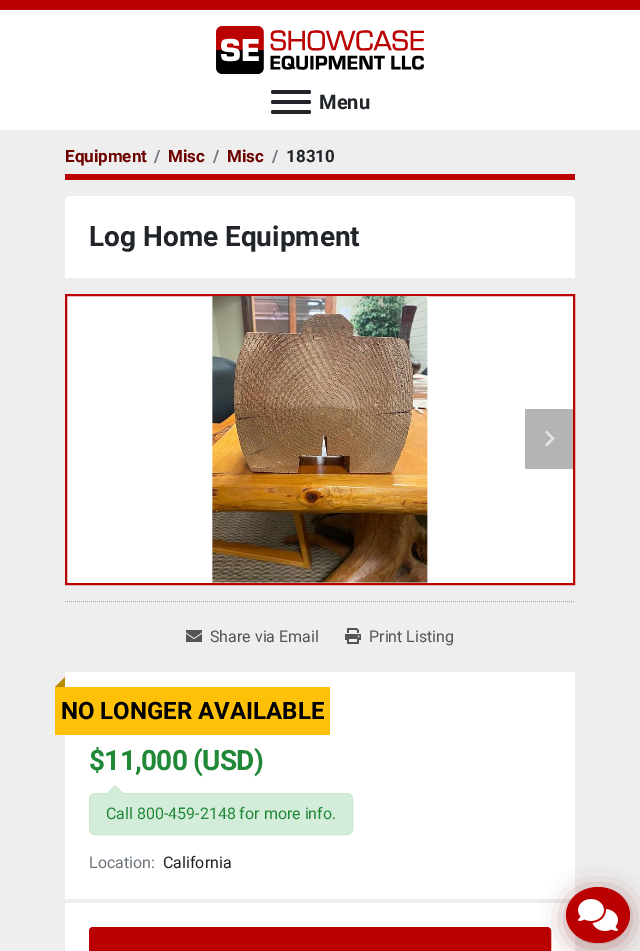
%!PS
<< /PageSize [640 951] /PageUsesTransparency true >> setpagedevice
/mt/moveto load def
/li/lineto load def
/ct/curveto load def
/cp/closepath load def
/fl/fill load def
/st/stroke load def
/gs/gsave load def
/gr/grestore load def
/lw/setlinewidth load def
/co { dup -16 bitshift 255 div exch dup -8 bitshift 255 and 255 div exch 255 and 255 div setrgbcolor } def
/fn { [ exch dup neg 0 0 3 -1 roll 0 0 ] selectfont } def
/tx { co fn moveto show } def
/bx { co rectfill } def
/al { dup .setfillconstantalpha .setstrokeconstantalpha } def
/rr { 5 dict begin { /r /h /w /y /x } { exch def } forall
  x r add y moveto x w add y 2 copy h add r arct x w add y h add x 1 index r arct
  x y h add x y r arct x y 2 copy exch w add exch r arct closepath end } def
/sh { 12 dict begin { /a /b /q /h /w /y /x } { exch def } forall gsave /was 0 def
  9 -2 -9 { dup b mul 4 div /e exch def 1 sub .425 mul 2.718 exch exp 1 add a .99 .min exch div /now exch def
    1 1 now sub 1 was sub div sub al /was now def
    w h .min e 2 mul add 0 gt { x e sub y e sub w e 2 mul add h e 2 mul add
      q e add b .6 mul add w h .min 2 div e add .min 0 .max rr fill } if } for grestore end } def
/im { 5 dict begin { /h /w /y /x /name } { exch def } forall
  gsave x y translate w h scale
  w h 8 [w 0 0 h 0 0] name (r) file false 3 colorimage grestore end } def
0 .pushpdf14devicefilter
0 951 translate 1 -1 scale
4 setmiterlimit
0 0 640 951 16#EEEEEE bx
0 10 640 120 16#FFFFFF bx
0 0 640 10 16#BA0000 bx
(media/1.raw) 216 26 208 48 im
16#212529 co
271 100 40 4 2 rr fl
271 90 40 4 2 rr fl
271 110 40 4 2 rr fl
65 174 510 6 16#BA0000 bx
16#FFFFFF co
71 196 mt 569 196 li 572.5 196 575 198.5 575 202 ct 575 278 li 65 278 li 65 202 li 65 198.5 67.5 196 71 196 ct cp fl
66 295 mt 574 295 li 574 584 li 66 584 li cp gs fl gr
16#BA0000 co
2 lw
st
(media/2.raw) 212 296 216 287 im
525 409 48 60 16#B4B4B4 bx
(media/3.raw) 545 430 10 17 im
16#AAAAAA co
1 lw
[1 1] 0 setdash
65 601.5 mt 575 601.5 li st
(media/4.raw) 186 630 16 12 im
(media/5.raw) 345 628 16 16 im
65 672 510 279 16#FFFFFF bx
55 687 275 48 16#FFC107 bx
16#BA8B00 co
65 687 mt 55 687 li 65 677 li cp fl
16#D4EDDA co
89.5 793.5 263 41 5.5 rr gs fl gr
16#C7E8CF co
[] 0 setdash
st
16#BFE5C7 co
124 794 mt 106 794 li 115 785 li cp fl
16#D4EDDA co
123 794 mt 107 794 li 115 786 li cp fl
65 899 510 4 16#EEEEEE bx
16#BA0000 co
89.5 927.5 461 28 3.5 rr gs fl gr
st
16#6E0000 co
566 891 64 56 28 12 .4 sh
16#BA0000 co
598 887 mt 615.5 887 630 899.5 630 915 ct 630 930.5 615.5 943 598 943 ct 580.5 943 566 930.5 566 915 ct 566 899.5 580.5 887 598 887 ct cp fl
(media/6.raw) 578 899 40 32 im
(Menu) 319 109 /Roboto-Bold 20 16#212529 tx
(Equipment) 65 162 /Roboto-Bold 17 16#6E0000 tx
(/) 154 162 /Roboto-Bold 17 16#6C757D tx
(Misc) 168 162 /Roboto-Bold 17 16#6E0000 tx
(/) 213 162 /Roboto-Bold 17 16#6C757D tx
(Misc) 227 162 /Roboto-Bold 17 16#6E0000 tx
(/) 272 162 /Roboto-Bold 17 16#6C757D tx
(18310) 286 162 /Roboto-Bold 17 16#212529 tx
(Log Home Equipment) 89 246 /Roboto-Bold 28 16#212529 tx
(Share via Email) 210 642 /Roboto-Regular 16 16#555555 tx
(Print Listing) 369 642 /Roboto-Regular 16 16#555555 tx
(NO LONGER AVAILABLE) 61 719 /Roboto-Bold 24 16#000000 tx
/Roboto-Bold 28 fn
16#218838 co
89 770 mt -.75 0 ($11,000 \(USD\)) ashow
(Call 800-459-2148 for more info.) 106 819 /Roboto-Regular 16 16#218838 tx
(Location:) 89 868 /Roboto-Regular 16 16#6C757D tx
(California) 163 868 /Roboto-Regular 16 16#212529 tx
.poppdf14devicefilter showpage
